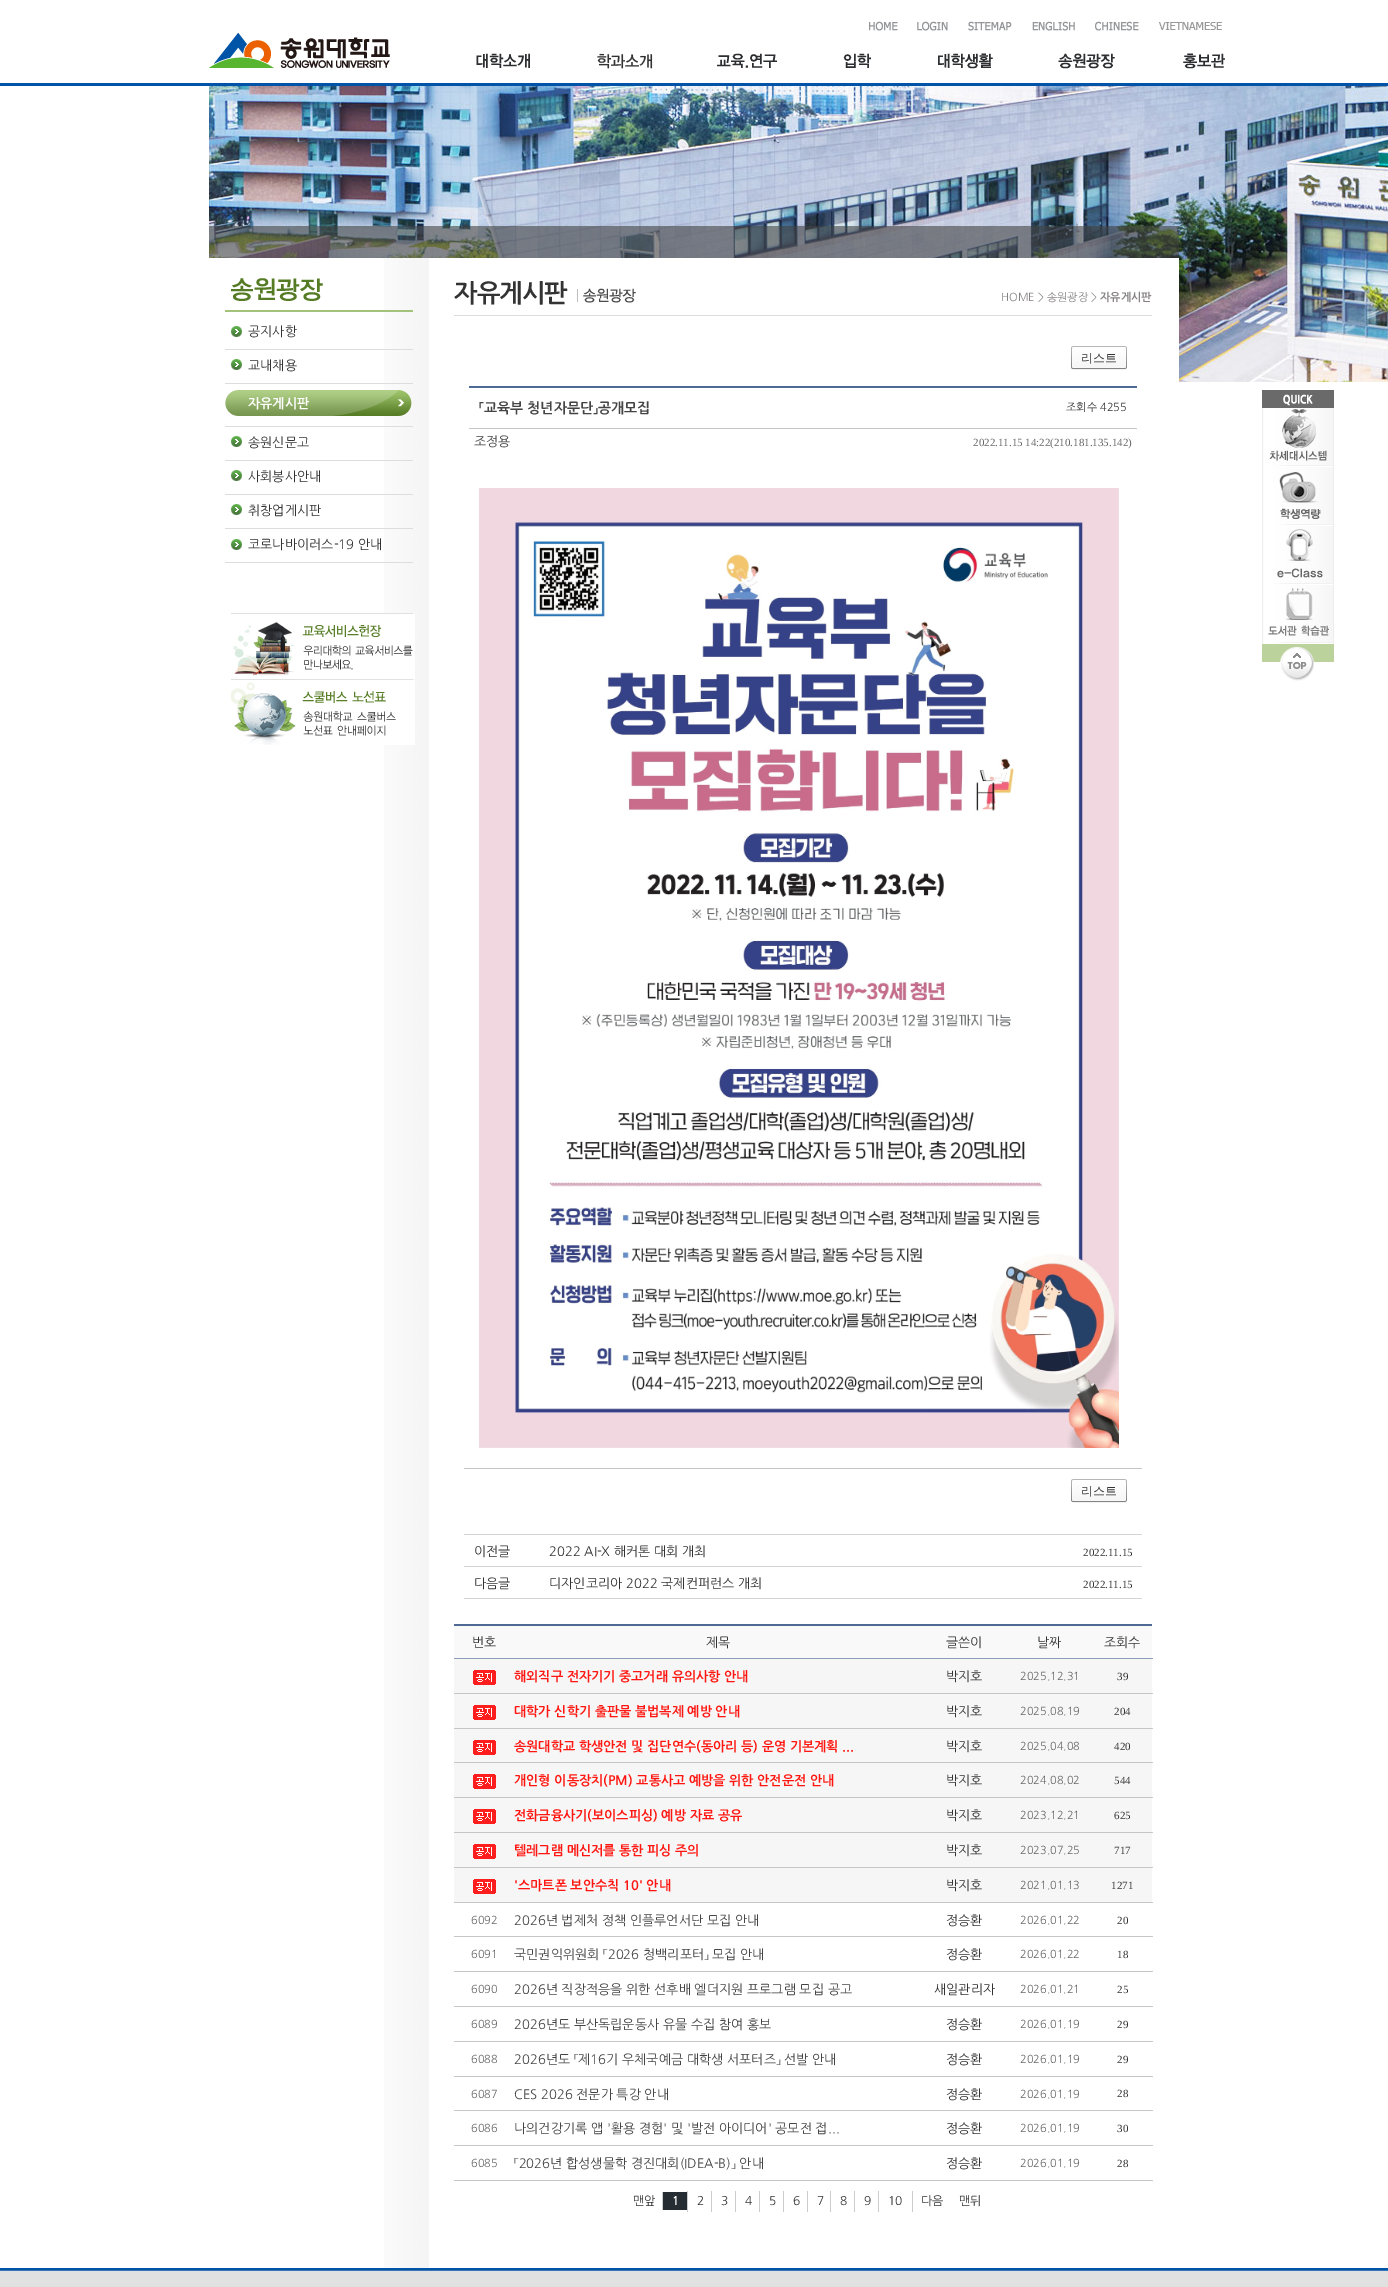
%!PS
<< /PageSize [1388 2287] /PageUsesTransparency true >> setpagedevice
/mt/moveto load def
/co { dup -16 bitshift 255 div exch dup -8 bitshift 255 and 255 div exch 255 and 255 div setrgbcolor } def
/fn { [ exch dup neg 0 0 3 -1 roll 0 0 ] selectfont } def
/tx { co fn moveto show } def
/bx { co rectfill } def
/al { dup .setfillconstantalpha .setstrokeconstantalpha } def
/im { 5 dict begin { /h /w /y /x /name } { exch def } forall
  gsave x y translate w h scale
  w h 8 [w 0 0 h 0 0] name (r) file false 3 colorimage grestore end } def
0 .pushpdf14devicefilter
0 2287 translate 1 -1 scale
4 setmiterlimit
0 0 1388 2287 16#FFFFFF bx
0 83 1388 3 16#0153A7 bx
(media/1.raw) 0 2268 1388 19 im
(media/2.raw) 869 21 29 10 im
(media/3.raw) 917 21 31 10 im
(media/4.raw) 968 21 44 10 im
(media/5.raw) 1032 21 43 10 im
(media/6.raw) 1095 21 44 10 im
(media/7.raw) 1159 22 63 8 im
(media/8.raw) 209 32 181 36 im
(media/9.raw) 476 53 54 15 im
(media/10.raw) 597 53 56 16 im
(media/11.raw) 717 53 60 15 im
(media/12.raw) 843 53 28 15 im
(media/13.raw) 938 53 55 16 im
(media/14.raw) 1058 53 57 16 im
(media/15.raw) 1183 53 42 16 im
(media/16.raw) 209 86 1179 296 im
0.6 al
209 226 970 32 16#434343 bx
1 al
209 258 970 124 16#FFFFFF bx
(media/17.raw) 384 258 45 2010 im
225 310 188 2 16#A3C27C bx
(media/18.raw) 231 278 92 23 im
(media/19.raw) 231 326 11 11 im
(media/19.raw) 231 359 11 11 im
225 349 188 1 16#DCDDDE bx
(media/20.raw) 225 390 187 26 im
225 383 188 1 16#DCDDDE bx
(media/19.raw) 231 436 11 11 im
225 426 188 1 16#DCDDDE bx
(media/19.raw) 231 470 11 11 im
225 460 188 1 16#DCDDDE bx
(media/19.raw) 231 504 11 11 im
225 494 188 1 16#DCDDDE bx
(media/19.raw) 231 539 11 11 im
225 528 188 1 16#DCDDDE bx
225 562 188 1 16#DCDDDE bx
231 613 182 1 16#E1E1E1 bx
(media/21.raw) 233 614 182 65 im
231 679 182 1 16#E1E1E1 bx
(media/22.raw) 231 680 184 65 im
(media/23.raw) 577 288 59 15 im
454 315 698 1 16#DDDDDF bx
(media/24.raw) 1071 346 52 24 im
(media/25.raw) 1123 346 4 24 im
464 1468 678 1 16#C6C6C6 bx
469 386 668 2 16#4F6B95 bx
469 428 668 1 16#C6C6C6 bx
(media/26.raw) 479 488 640 960 im
(media/24.raw) 1071 1479 52 24 im
(media/25.raw) 1123 1479 4 24 im
464 1534 678 1 16#D4D4D4 bx
464 1566 678 1 16#D4D4D4 bx
464 1598 678 1 16#D4D4D4 bx
454 2180 699 1 16#C6C6C6 bx
454 1624 698 2 16#4F6B95 bx
454 1626 698 32 16#F9F9F9 bx
454 1658 699 1 16#8D9FB8 bx
454 1659 698 34 16#F6F6F6 bx
(media/27.raw) 473 1670 23 15 im
454 1693 699 1 16#C6C6C6 bx
454 1694 698 34 16#F6F6F6 bx
(media/27.raw) 473 1705 23 15 im
454 1728 699 1 16#C6C6C6 bx
454 1729 698 33 16#F6F6F6 bx
(media/27.raw) 473 1740 23 15 im
454 1762 699 1 16#C6C6C6 bx
454 1763 698 34 16#F6F6F6 bx
(media/27.raw) 473 1774 23 15 im
454 1797 699 1 16#C6C6C6 bx
454 1798 698 34 16#F6F6F6 bx
(media/27.raw) 473 1809 23 15 im
454 1832 699 1 16#C6C6C6 bx
454 1833 698 34 16#F6F6F6 bx
(media/27.raw) 473 1844 23 15 im
454 1867 699 1 16#C6C6C6 bx
454 1868 698 34 16#F6F6F6 bx
(media/27.raw) 473 1879 23 15 im
454 1902 699 1 16#C6C6C6 bx
454 1936 699 1 16#C6C6C6 bx
454 1971 699 1 16#C6C6C6 bx
454 2006 699 1 16#C6C6C6 bx
454 2041 699 1 16#C6C6C6 bx
454 2076 699 1 16#C6C6C6 bx
454 2110 699 1 16#C6C6C6 bx
454 2145 699 1 16#C6C6C6 bx
663 2192 24 18 16#252D33 bx
662 2192 1 18 16#CCCCCC bx
687 2191 1 21 16#CCCCCC bx
711 2191 1 21 16#CCCCCC bx
735 2191 1 21 16#CCCCCC bx
759 2191 1 21 16#CCCCCC bx
783 2191 1 21 16#CCCCCC bx
807 2191 1 21 16#CCCCCC bx
830 2191 1 21 16#CCCCCC bx
854 2191 1 21 16#CCCCCC bx
912 2191 1 21 16#CCCCCC bx
878 2191 1 21 16#CCCCCC bx
(media/28.raw) 1262 390 72 18 im
(media/29.raw) 1262 408 72 59 im
(media/30.raw) 1262 467 72 59 im
(media/31.raw) 1262 526 72 59 im
(media/32.raw) 1262 585 72 59 im
(media/33.raw) 1262 644 72 37 im
(공지사항) 248 336 /NanumGothic-Regular 13 16#333333 tx
(교내채용) 248 370 /NanumGothic-Regular 13 16#333333 tx
(자유게시판) 248 408 /NanumGothic-Bold 13 16#FFFFFF tx
(송원신문고) 248 447 /NanumGothic-Regular 13 16#333333 tx
(사회봉사안내) 248 481 /NanumGothic-Regular 13 16#333333 tx
(취창업게시판) 248 515 /NanumGothic-Regular 13 16#333333 tx
(코로나바이러스-19 안내) 248 549 /NanumGothic-Regular 13 16#333333 tx
/NanumGothic-Bold 25 fn
454 302 mt -1 0 (자유게시판) ashow
(HOME > 송원광장 >) 1001 301 /NanumGothic-Regular 11 16#858181 tx
(자유게시판) 1100 301 /NanumGothic-Bold 11 16#858181 tx
(리스트) 1081 362 /WenQuanYiZenHei-Medium 12 16#333333 tx
(「교육부 청년자문단」공개모집) 479 413 /NanumGothic-Bold 14 16#444444 tx
(조회수 4255) 1066 411 /NanumGothic-Regular 11 16#333333 tx
(조정용) 474 446 /NanumGothic-Regular 13 16#444444 tx
(2022.11.15 14:22\(210.181.135.142\)) 973 446 /LiberationSerif-Regular 11 16#666666 tx
(리스트) 1081 1495 /WenQuanYiZenHei-Medium 12 16#333333 tx
(이전글) 474 1556 /NanumGothic-Regular 13 16#333333 tx
(2022 AI-X 해커톤 대회 개최) 549 1556 /NanumGothic-Regular 13 16#333333 tx
(2022.11.15) 1083 1556 /LiberationSerif-Regular 11 16#333333 tx
(다음글) 474 1588 /NanumGothic-Regular 13 16#333333 tx
(디자인코리아 2022 국제컨퍼런스 개최) 549 1588 /NanumGothic-Regular 13 16#333333 tx
(2022.11.15) 1083 1588 /LiberationSerif-Regular 11 16#333333 tx
(번호) 472 1647 /NanumGothic-Regular 13 16#333333 tx
(제목) 706 1647 /NanumGothic-Regular 13 16#333333 tx
(글쓴이) 946 1647 /NanumGothic-Regular 13 16#333333 tx
(날짜) 1037 1647 /NanumGothic-Regular 13 16#333333 tx
(조회수) 1104 1647 /NanumGothic-Regular 13 16#333333 tx
(해외직구 전자기기 중고거래 유의사항 안내) 514 1681 /NanumGothic-Bold 13 16#FF1610 tx
(박지호) 946 1681 /NanumGothic-Regular 13 16#333333 tx
(2025.12.31) 1020 1680 /NanumGothic-Regular 11 16#666666 tx
(39) 1117 1680 /LiberationSerif-Regular 11 16#333333 tx
(대학가 신학기 출판물 불법복제 예방 안내) 514 1716 /NanumGothic-Bold 13 16#FF1610 tx
(박지호) 946 1716 /NanumGothic-Regular 13 16#333333 tx
(2025.08.19) 1020 1715 /NanumGothic-Regular 11 16#666666 tx
(204) 1114 1715 /LiberationSerif-Regular 11 16#333333 tx
(송원대학교 학생안전 및 집단연수\(동아리 등\) 운영 기본계획 ...) 514 1751 /NanumGothic-Bold 13 16#FF1610 tx
(박지호) 946 1751 /NanumGothic-Regular 13 16#333333 tx
(2025.04.08) 1020 1750 /NanumGothic-Regular 11 16#666666 tx
(420) 1114 1750 /LiberationSerif-Regular 11 16#333333 tx
(개인형 이동장치\(PM\) 교통사고 예방을 위한 안전운전 안내) 514 1785 /NanumGothic-Bold 13 16#FF1610 tx
(박지호) 946 1785 /NanumGothic-Regular 13 16#333333 tx
(2024.08.02) 1020 1784 /NanumGothic-Regular 11 16#666666 tx
(544) 1114 1784 /LiberationSerif-Regular 11 16#333333 tx
(전화금융사기\(보이스피싱\) 예방 자료 공유) 514 1820 /NanumGothic-Bold 13 16#FF1610 tx
(박지호) 946 1820 /NanumGothic-Regular 13 16#333333 tx
(2023.12.21) 1020 1819 /NanumGothic-Regular 11 16#666666 tx
(625) 1114 1819 /LiberationSerif-Regular 11 16#333333 tx
(텔레그램 메신저를 통한 피싱 주의) 514 1855 /NanumGothic-Bold 13 16#FF1610 tx
(박지호) 946 1855 /NanumGothic-Regular 13 16#333333 tx
(2023.07.25) 1020 1854 /NanumGothic-Regular 11 16#666666 tx
(717) 1114 1854 /LiberationSerif-Regular 11 16#333333 tx
('스마트폰 보안수칙 10' 안내) 514 1890 /NanumGothic-Bold 13 16#FF1610 tx
(박지호) 946 1890 /NanumGothic-Regular 13 16#333333 tx
(2021.01.13) 1020 1889 /NanumGothic-Regular 11 16#666666 tx
(1271) 1111 1889 /LiberationSerif-Regular 11 16#333333 tx
(6092) 471 1924 /NanumGothic-Regular 11 16#666666 tx
(2026년 법제처 정책 인플루언서단 모집 안내) 514 1925 /NanumGothic-Regular 13 16#444444 tx
(정승환) 946 1925 /NanumGothic-Regular 13 16#333333 tx
(2026.01.22) 1020 1924 /NanumGothic-Regular 11 16#666666 tx
(20) 1117 1924 /LiberationSerif-Regular 11 16#333333 tx
(6091) 471 1958 /NanumGothic-Regular 11 16#666666 tx
(국민권익위원회 「2026 청백리포터」 모집 안내) 514 1959 /NanumGothic-Regular 13 16#444444 tx
(정승환) 946 1959 /NanumGothic-Regular 13 16#333333 tx
(2026.01.22) 1020 1958 /NanumGothic-Regular 11 16#666666 tx
(18) 1117 1958 /LiberationSerif-Regular 11 16#333333 tx
(6090) 471 1993 /NanumGothic-Regular 11 16#666666 tx
(2026년 직장적응을 위한 선후배 엘더지원 프로그램 모집 공고) 514 1994 /NanumGothic-Regular 13 16#444444 tx
(새일관리자) 934 1994 /NanumGothic-Regular 13 16#333333 tx
(2026.01.21) 1020 1993 /NanumGothic-Regular 11 16#666666 tx
(25) 1117 1993 /LiberationSerif-Regular 11 16#333333 tx
(6089) 471 2028 /NanumGothic-Regular 11 16#666666 tx
(2026년도 부산독립운동사 유물 수집 참여 홍보) 514 2029 /NanumGothic-Regular 13 16#444444 tx
(정승환) 946 2029 /NanumGothic-Regular 13 16#333333 tx
(2026.01.19) 1020 2028 /NanumGothic-Regular 11 16#666666 tx
(29) 1117 2028 /LiberationSerif-Regular 11 16#333333 tx
(6088) 471 2063 /NanumGothic-Regular 11 16#666666 tx
(2026년도 「제16기 우체국예금 대학생 서포터즈」 선발 안내) 514 2064 /NanumGothic-Regular 13 16#444444 tx
(정승환) 946 2064 /NanumGothic-Regular 13 16#333333 tx
(2026.01.19) 1020 2063 /NanumGothic-Regular 11 16#666666 tx
(29) 1117 2063 /LiberationSerif-Regular 11 16#333333 tx
(6087) 471 2098 /NanumGothic-Regular 11 16#666666 tx
(CES 2026 전문가 특강 안내) 514 2099 /NanumGothic-Regular 13 16#444444 tx
(정승환) 946 2099 /NanumGothic-Regular 13 16#333333 tx
(2026.01.19) 1020 2098 /NanumGothic-Regular 11 16#666666 tx
(28) 1117 2097 /LiberationSerif-Regular 11 16#333333 tx
(6086) 471 2132 /NanumGothic-Regular 11 16#666666 tx
(나의건강기록 앱 '활용 경험' 및 '발전 아이디어' 공모전 접...) 514 2133 /NanumGothic-Regular 13 16#444444 tx
(정승환) 946 2133 /NanumGothic-Regular 13 16#333333 tx
(2026.01.19) 1020 2132 /NanumGothic-Regular 11 16#666666 tx
(30) 1117 2132 /LiberationSerif-Regular 11 16#333333 tx
(6085) 471 2167 /NanumGothic-Regular 11 16#666666 tx
(「2026년 합성생물학 경진대회\(IDEA-B\)」 안내) 514 2168 /NanumGothic-Regular 13 16#444444 tx
(정승환) 946 2168 /NanumGothic-Regular 13 16#333333 tx
(2026.01.19) 1020 2167 /NanumGothic-Regular 11 16#666666 tx
(28) 1117 2167 /LiberationSerif-Regular 11 16#333333 tx
(맨앞) 633 2205 /NanumGothic-Regular 12 16#333333 tx
(1) 672 2205 /NanumGothic-Bold 12 16#FFFFFF tx
(2) 697 2205 /NanumGothic-Regular 12 16#333333 tx
(3) 721 2205 /NanumGothic-Regular 12 16#333333 tx
(4) 745 2205 /NanumGothic-Regular 12 16#333333 tx
(5) 769 2205 /NanumGothic-Regular 12 16#333333 tx
(6) 793 2205 /NanumGothic-Regular 12 16#333333 tx
(7) 817 2205 /NanumGothic-Regular 12 16#333333 tx
(8) 840 2205 /NanumGothic-Regular 12 16#333333 tx
(9) 864 2205 /NanumGothic-Regular 12 16#333333 tx
(10) 888 2205 /NanumGothic-Regular 12 16#333333 tx
(다음) 921 2205 /NanumGothic-Regular 12 16#333333 tx
(맨뒤) 959 2205 /NanumGothic-Regular 12 16#333333 tx
.poppdf14devicefilter showpage
